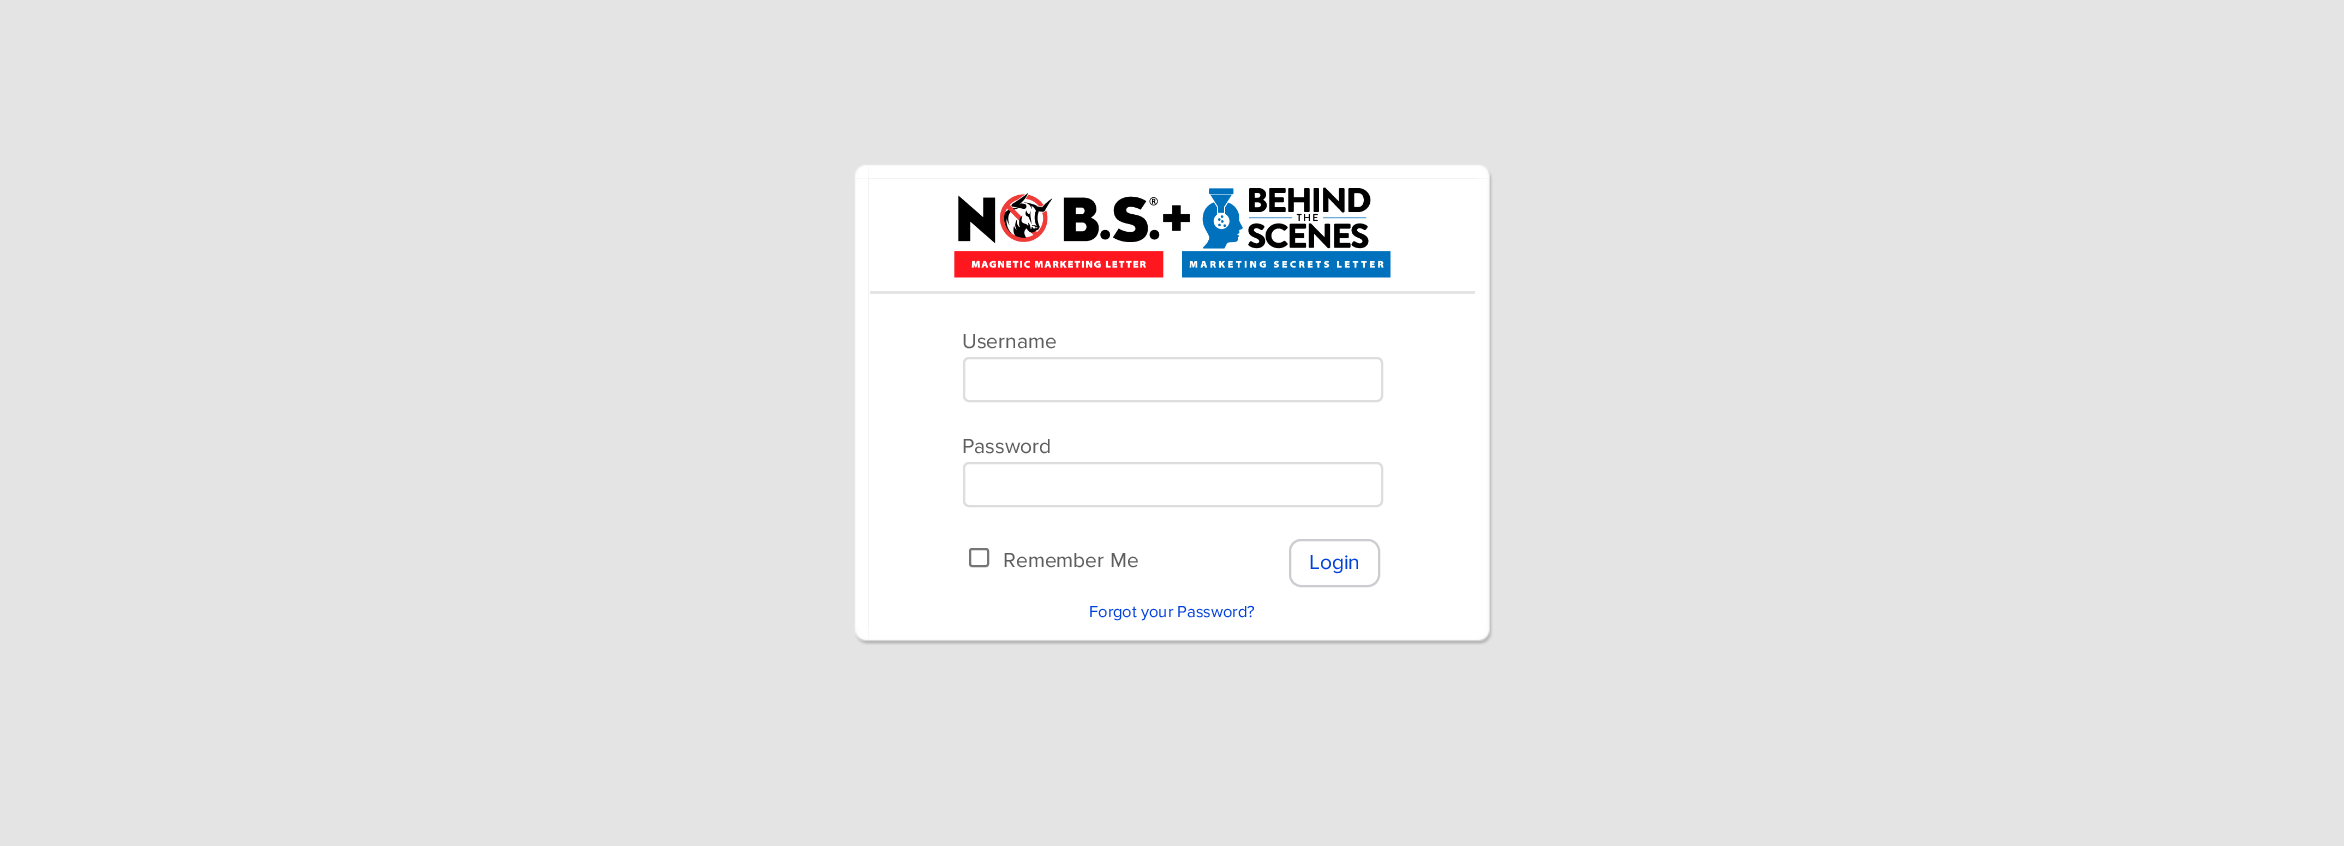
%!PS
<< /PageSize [2344 846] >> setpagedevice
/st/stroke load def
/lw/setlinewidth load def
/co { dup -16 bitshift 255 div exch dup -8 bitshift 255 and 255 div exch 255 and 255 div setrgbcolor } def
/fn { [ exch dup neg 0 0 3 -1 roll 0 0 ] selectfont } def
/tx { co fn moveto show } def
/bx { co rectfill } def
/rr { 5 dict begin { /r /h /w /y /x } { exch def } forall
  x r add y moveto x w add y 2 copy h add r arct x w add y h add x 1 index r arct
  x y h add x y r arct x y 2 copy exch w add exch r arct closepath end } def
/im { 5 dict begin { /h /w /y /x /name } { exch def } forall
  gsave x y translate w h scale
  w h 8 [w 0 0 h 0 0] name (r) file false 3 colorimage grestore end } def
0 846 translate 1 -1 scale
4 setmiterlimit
0 0 2344 846 16#E4E4E4 bx
(media/1.raw) 854 164 15 15 im
(media/2.raw) 868 164 608 15 im
(media/3.raw) 1476 164 17 15 im
(media/4.raw) 854 178 15 449 im
869 179 607 448 16#FFFFFF bx
(media/5.raw) 954 187 437 91 im
870 291 605 3 16#E4E4E4 bx
16#DDDDDD co
2 lw
964 358 418 43 5 rr st
964 463 418 43 5 rr st
16#767676 co
970 549 18 17 2 rr st
16#CDCDD1 co
1290 540 89 46 11 rr st
(media/6.raw) 1476 178 17 449 im
(media/7.raw) 854 627 15 18 im
(media/8.raw) 868 627 608 18 im
(media/9.raw) 1476 627 17 18 im
(Username) 962 348 /ProximaNova-Regular 21 16#5E5E5E tx
(Password) 962 453 /ProximaNova-Regular 21 16#5E5E5E tx
(Remember Me) 1003 567 /ProximaNova-Regular 21 16#5E5E5E tx
(Login) 1309 569 /ProximaNova-Regular 21 16#0040DB tx
(Forgot your Password?) 1089 617 /ProximaNova-Regular 16.5 16#0040DB tx
showpage
